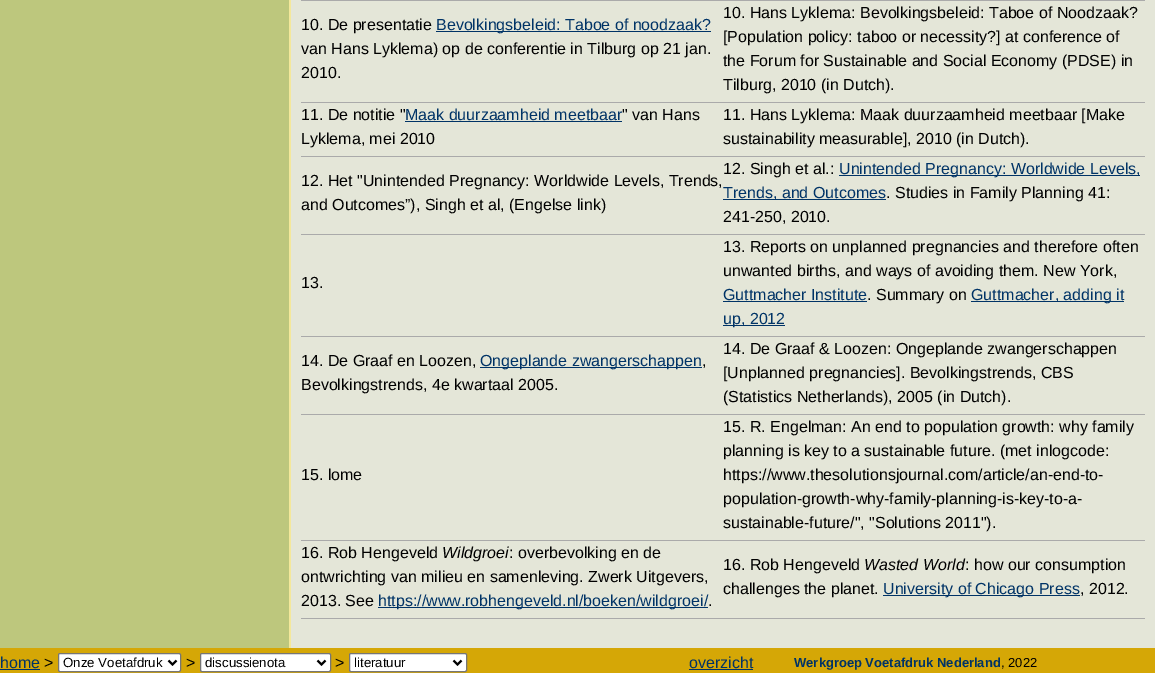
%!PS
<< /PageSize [1155 673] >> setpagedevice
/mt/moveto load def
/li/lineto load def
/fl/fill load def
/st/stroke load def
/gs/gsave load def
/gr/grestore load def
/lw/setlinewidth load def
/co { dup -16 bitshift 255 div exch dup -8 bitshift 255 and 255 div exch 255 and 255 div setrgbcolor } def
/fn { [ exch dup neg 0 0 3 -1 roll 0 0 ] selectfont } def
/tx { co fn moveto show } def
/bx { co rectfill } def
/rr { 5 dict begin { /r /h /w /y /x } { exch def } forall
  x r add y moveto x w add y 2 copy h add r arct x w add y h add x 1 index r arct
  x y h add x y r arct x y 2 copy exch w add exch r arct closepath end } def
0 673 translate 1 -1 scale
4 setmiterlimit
0 0 1155 673 16#BDC77D bx
291 0 864 648 16#E4E6D8 bx
289 0 2 648 16#F4E89B bx
301 0 844 1 16#AAAAAA bx
301 102 844 1 16#AAAAAA bx
436 31 275 1 16#003366 bx
301 156 844 1 16#AAAAAA bx
405 121 217 1 16#003366 bx
301 234 844 1 16#AAAAAA bx
839 175 301 1 16#003366 bx
723 199 163 1 16#003366 bx
301 336 844 1 16#AAAAAA bx
723 301 144 1 16#003366 bx
971 301 153 1 16#003366 bx
723 325 62 1 16#003366 bx
301 414 844 1 16#AAAAAA bx
480 367 222 1 16#003366 bx
301 540 844 1 16#AAAAAA bx
301 618 844 1 16#AAAAAA bx
378 607 330 1 16#003366 bx
883 595 197 1 16#003366 bx
0 648 1155 25 16#D5A706 bx
0 669 40 1 16#003366 bx
16#FFFFFF co
58.5 653.5 122 18 1.5 rr gs fl gr
16#767676 co
st
16#000000 co
2 lw
168.5 660.5 mt 172.5 664.5 li 176.5 660.5 li st
16#FFFFFF co
200.5 653.5 130 18 1.5 rr gs fl gr
16#767676 co
1 lw
st
16#000000 co
2 lw
317.5 660.5 mt 321.5 664.5 li 325.5 660.5 li st
16#FFFFFF co
349.5 653.5 117 18 1.5 rr gs fl gr
16#767676 co
1 lw
st
16#000000 co
2 lw
453.5 660.5 mt 457.5 664.5 li 461.5 660.5 li st
689 669 64 1 16#003366 bx
(10. De presentatie) 301 30 /LiberationSans-Regular 16 16#000000 tx
(Bevolkingsbeleid: Taboe of noodzaak?) 436 30 /LiberationSans-Regular 16 16#003366 tx
(van Hans Lyklema\) op de conferentie in Tilburg op 21 jan.) 301 54 /LiberationSans-Regular 16 16#000000 tx
(2010.) 301 78 /LiberationSans-Regular 16 16#000000 tx
(10. Hans Lyklema: Bevolkingsbeleid: Taboe of Noodzaak?) 723 18 /LiberationSans-Regular 16 16#000000 tx
([Population policy: taboo or necessity?] at conference of) 723 42 /LiberationSans-Regular 16 16#000000 tx
(the Forum for Sustainable and Social Economy \(PDSE\) in) 723 66 /LiberationSans-Regular 16 16#000000 tx
(Tilburg, 2010 \(in Dutch\).) 723 90 /LiberationSans-Regular 16 16#000000 tx
(11. De notitie ") 301 120 /LiberationSans-Regular 16 16#000000 tx
(Maak duurzaamheid meetbaar) 405 120 /LiberationSans-Regular 16 16#003366 tx
(" van Hans) 622 120 /LiberationSans-Regular 16 16#000000 tx
(Lyklema, mei 2010) 301 144 /LiberationSans-Regular 16 16#000000 tx
(11. Hans Lyklema: Maak duurzaamheid meetbaar [Make) 723 120 /LiberationSans-Regular 16 16#000000 tx
(sustainability measurable], 2010 \(in Dutch\).) 723 144 /LiberationSans-Regular 16 16#000000 tx
(12. Het "Unintended Pregnancy: Worldwide Levels, Trends,) 301 186 /LiberationSans-Regular 16 16#000000 tx
(and Outcomes”\), Singh et al, \(Engelse link\)) 301 210 /LiberationSans-Regular 16 16#000000 tx
(12. Singh et al.:) 723 174 /LiberationSans-Regular 16 16#000000 tx
(Unintended Pregnancy: Worldwide Levels,) 839 174 /LiberationSans-Regular 16 16#003366 tx
(Trends, and Outcomes) 723 198 /LiberationSans-Regular 16 16#003366 tx
(. Studies in Family Planning 41:) 886 198 /LiberationSans-Regular 16 16#000000 tx
(241-250, 2010.) 723 222 /LiberationSans-Regular 16 16#000000 tx
(13.) 301 288 /LiberationSans-Regular 16 16#000000 tx
(13. Reports on unplanned pregnancies and therefore often) 723 252 /LiberationSans-Regular 16 16#000000 tx
(unwanted births, and ways of avoiding them. New York,) 723 276 /LiberationSans-Regular 16 16#000000 tx
(Guttmacher Institute) 723 300 /LiberationSans-Regular 16 16#003366 tx
(. Summary on) 867 300 /LiberationSans-Regular 16 16#000000 tx
(Guttmacher, adding it) 971 300 /LiberationSans-Regular 16 16#003366 tx
(up, 2012) 723 324 /LiberationSans-Regular 16 16#003366 tx
(14. De Graaf en Loozen,) 301 366 /LiberationSans-Regular 16 16#000000 tx
(Ongeplande zwangerschappen) 480 366 /LiberationSans-Regular 16 16#003366 tx
(,) 702 366 /LiberationSans-Regular 16 16#000000 tx
(Bevolkingstrends, 4e kwartaal 2005.) 301 390 /LiberationSans-Regular 16 16#000000 tx
(14. De Graaf & Loozen: Ongeplande zwangerschappen) 723 354 /LiberationSans-Regular 16 16#000000 tx
([Unplanned pregnancies]. Bevolkingstrends, CBS) 723 378 /LiberationSans-Regular 16 16#000000 tx
(\(Statistics Netherlands\), 2005 \(in Dutch\).) 723 402 /LiberationSans-Regular 16 16#000000 tx
(15. lome) 301 480 /LiberationSans-Regular 16 16#000000 tx
(15. R. Engelman: An end to population growth: why family) 723 432 /LiberationSans-Regular 16 16#000000 tx
(planning is key to a sustainable future. \(met inlogcode:) 723 456 /LiberationSans-Regular 16 16#000000 tx
(https://www.thesolutionsjournal.com/article/an-end-to-) 723 480 /LiberationSans-Regular 16 16#000000 tx
(population-growth-why-family-planning-is-key-to-a-) 723 504 /LiberationSans-Regular 16 16#000000 tx
(sustainable-future/", "Solutions 2011"\).) 723 528 /LiberationSans-Regular 16 16#000000 tx
(16. Rob Hengeveld) 301 558 /LiberationSans-Regular 16 16#000000 tx
(Wildgroei) 442 558 /LiberationSans-Italic 16 16#000000 tx
(: overbevolking en de) 509 558 /LiberationSans-Regular 16 16#000000 tx
(ontwrichting van milieu en samenleving. Zwerk Uitgevers,) 301 582 /LiberationSans-Regular 16 16#000000 tx
(2013. See) 301 606 /LiberationSans-Regular 16 16#000000 tx
(https://www.robhengeveld.nl/boeken/wildgroei/) 378 606 /LiberationSans-Regular 16 16#003366 tx
(.) 708 606 /LiberationSans-Regular 16 16#000000 tx
(16. Rob Hengeveld) 723 570 /LiberationSans-Regular 16 16#000000 tx
(Wasted World) 864 570 /LiberationSans-Italic 16 16#000000 tx
(: how our consumption) 965 570 /LiberationSans-Regular 16 16#000000 tx
(challenges the planet.) 723 594 /LiberationSans-Regular 16 16#000000 tx
(University of Chicago Press) 883 594 /LiberationSans-Regular 16 16#003366 tx
(, 2012.) 1080 594 /LiberationSans-Regular 16 16#000000 tx
(home) 0 668 /LiberationSans-Regular 16 16#003366 tx
(>) 44 668 /LiberationSans-Regular 16 16#000000 tx
(Onze Voetafdruk) 63 667 /LiberationSans-Regular 13.25 16#000000 tx
(>) 186 668 /LiberationSans-Regular 16 16#000000 tx
(discussienota) 205 667 /LiberationSans-Regular 13.25 16#000000 tx
(>) 335 668 /LiberationSans-Regular 16 16#000000 tx
(literatuur) 354 667 /LiberationSans-Regular 13.25 16#000000 tx
(overzicht) 689 668 /LiberationSans-Regular 16 16#003366 tx
(Werkgroep Voetafdruk Nederland) 794 667 /LiberationSans-Bold 13 16#003366 tx
(, 2022) 1001 667 /LiberationSans-Regular 13 16#000000 tx
showpage
